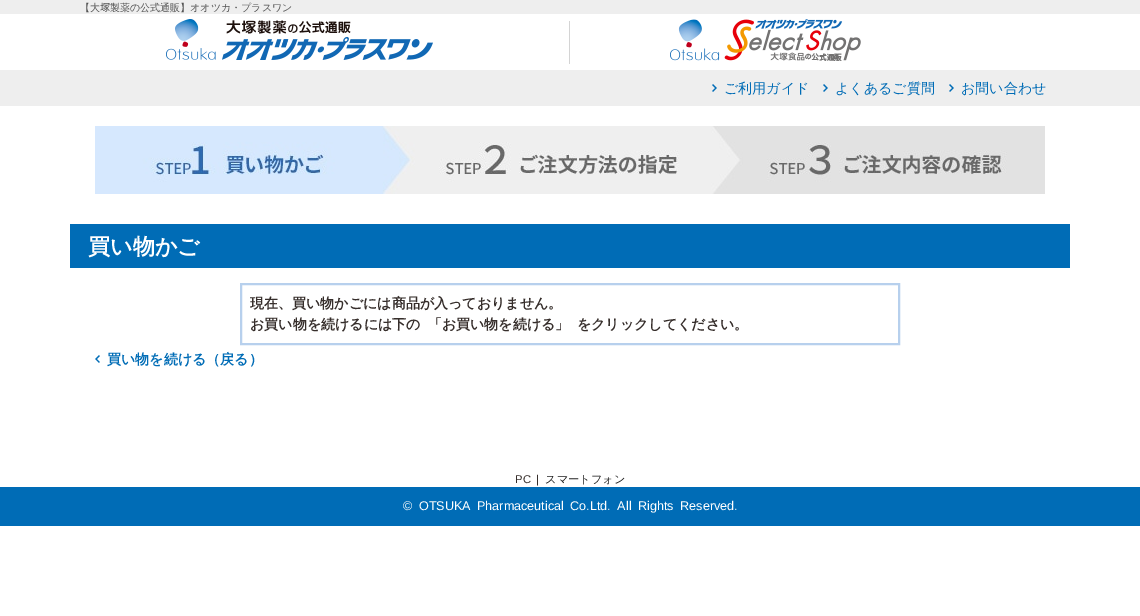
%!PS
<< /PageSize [1140 616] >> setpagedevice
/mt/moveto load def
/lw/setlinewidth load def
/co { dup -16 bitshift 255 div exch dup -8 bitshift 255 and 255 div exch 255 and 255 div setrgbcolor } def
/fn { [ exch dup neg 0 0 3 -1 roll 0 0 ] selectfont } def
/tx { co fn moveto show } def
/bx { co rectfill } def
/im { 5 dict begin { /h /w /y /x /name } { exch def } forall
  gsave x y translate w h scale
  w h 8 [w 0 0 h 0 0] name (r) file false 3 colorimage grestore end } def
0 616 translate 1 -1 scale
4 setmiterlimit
0 0 1140 616 16#FFFFFF bx
0 0 1140 14 16#EEEEEE bx
(media/1.raw) 166 19 404 45 im
(media/2.raw) 670 19 191 42 im
0 70 1140 36 16#EEEEEE bx
(media/3.raw) 712 84 5 8 im
(media/3.raw) 823 84 5 8 im
(media/3.raw) 949 84 5 8 im
(media/4.raw) 95 126 950 68 im
70 224 1000 44 16#006CB6 bx
16#B7D0ED co
2 lw
241 284 658 60 rectstroke
(media/5.raw) 95 355 5 8 im
0 487 1140 39 16#006CB6 bx
(【大) 80 11 /WenQuanYiZenHei-Medium 10 16#535353 tx
(塚) 100 11 /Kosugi-Regular 10 16#535353 tx
(製薬の公式通販】オオツカ・プラスワン) 110 11 /WenQuanYiZenHei-Medium 10 16#535353 tx
(ご利用ガイド) 724 93 /WenQuanYiZenHei-Medium 14 16#006CB6 tx
(よくあるご質問) 835 93 /WenQuanYiZenHei-Medium 14 16#006CB6 tx
(お問い合わせ) 961 93 /WenQuanYiZenHei-Medium 14 16#006CB6 tx
(買い物かご) 88 254 /WenQuanYiZenHei-Bold 22 16#FFFFFF tx
(現在、買い物かごには商品が入っておりません。) 250 308 /WenQuanYiZenHei-Bold 14 16#362E2B tx
250 329 mt 3 0 32 (お買い物を続けるには下の 「お買い物を続ける」 をクリックしてください。) widthshow
(買い物を続ける（戻る）) 107 364 /WenQuanYiZenHei-Bold 14 16#006CB6 tx
(PC) 515 483 /LiberationSans-Regular 11.25 16#362E2B tx
(|) 536 483 /LiberationSans-Regular 11.25 16#362E2B tx
(スマートフォン) 545 483 /WenQuanYiZenHei-Medium 11.25 16#1F1F1F tx
/LiberationSans-Regular 12.6 fn
16#FFFFFF co
403 510 mt 3 0 32 (© OTSUKA Pharmaceutical Co.Ltd. All Rights Reserved.) widthshow
showpage
